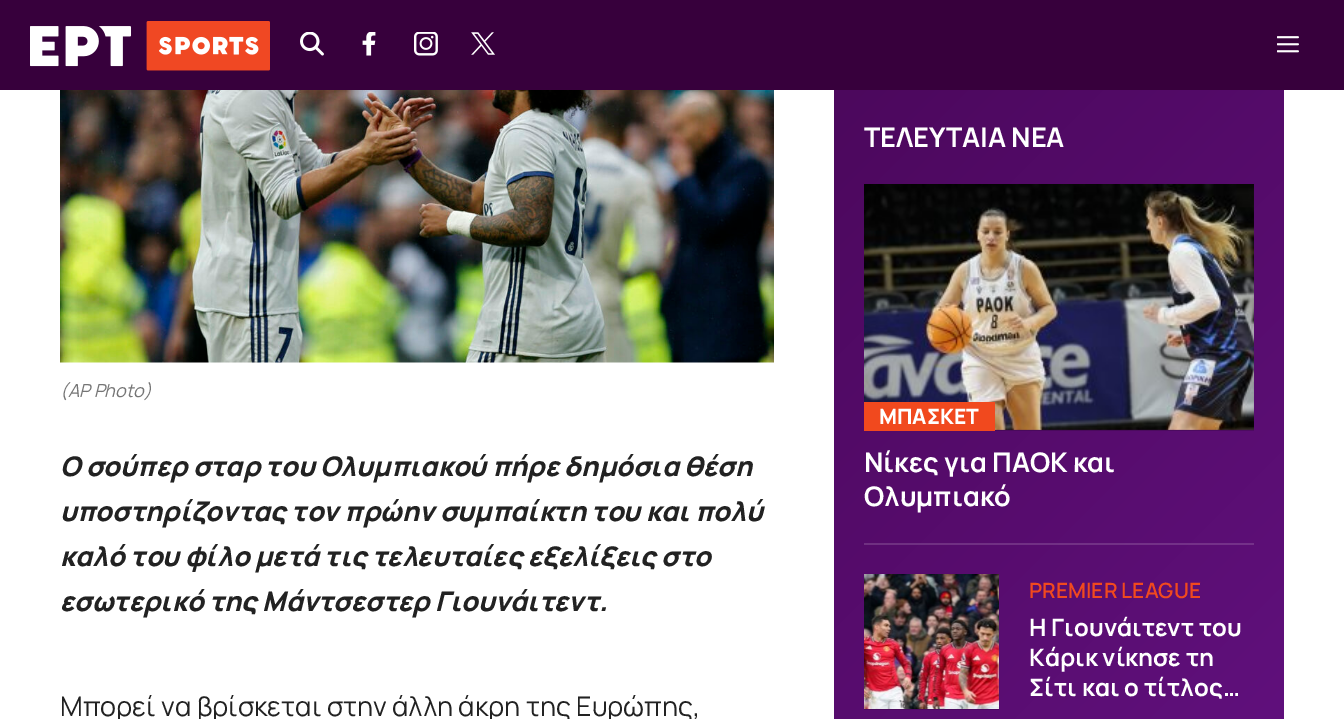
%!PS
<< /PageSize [1344 719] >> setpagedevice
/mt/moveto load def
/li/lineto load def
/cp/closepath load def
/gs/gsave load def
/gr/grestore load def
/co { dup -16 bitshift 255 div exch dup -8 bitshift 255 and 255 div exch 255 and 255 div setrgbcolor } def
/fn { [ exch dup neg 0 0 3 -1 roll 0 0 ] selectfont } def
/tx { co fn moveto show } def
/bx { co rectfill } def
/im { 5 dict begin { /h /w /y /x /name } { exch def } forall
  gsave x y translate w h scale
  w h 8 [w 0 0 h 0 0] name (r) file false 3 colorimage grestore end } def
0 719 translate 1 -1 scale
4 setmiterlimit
0 0 1344 719 16#FFFFFF bx
0 0 1344 90 16#37003C bx
(media/1.raw) 30 21 240 50 im
(media/2.raw) 300 32 24 24 im
(media/3.raw) 362 32 14 24 im
(media/4.raw) 414 32 24 24 im
(media/5.raw) 471 32 24 23 im
(media/6.raw) 1277 36 22 17 im
(media/7.raw) 60 90 714 273 im
gs 834 90 mt 1284 90 li 1284 719 li 834 719 li cp clip newpath
<< /ShadingType 2 /ColorSpace /DeviceRGB /Coords [608 316 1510 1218] /Extend [true true] /Function << /FunctionType 2 /Domain [0 1] /C0 [.298 .031 .365] /C1 [.427 .082 .565] /N 1 >> >> shfill gr
gs 864 709 mt 999 709 li 999 710 li 864 710 li cp clip newpath
<< /ShadingType 2 /ColorSpace /DeviceRGB /Coords [608 316 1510 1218] /Extend [true true] /Function << /FunctionType 2 /Domain [0 1] /C0 [.255 .027 .31] /C1 [.365 .071 .478] /N 1 >> >> shfill gr
gs 995 185 mt 1254 185 li 1254 431 li 995 431 li cp clip newpath
<< /ShadingType 2 /ColorSpace /DeviceRGB /Coords [608 316 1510 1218] /Extend [true true] /Function << /FunctionType 2 /Domain [0 1] /C0 [.255 .027 .31] /C1 [.365 .071 .478] /N 1 >> >> shfill gr
gs 864 543 mt 1254 543 li 1254 545 li 864 545 li cp clip newpath
<< /ShadingType 2 /ColorSpace /DeviceRGB /Coords [608 316 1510 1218] /Extend [true true] /Function << /FunctionType 2 /Domain [0 1] /C0 [.404 .176 .459] /C1 [.514 .22 .631] /N 1 >> >> shfill gr
(media/8.raw) 864 184 390 246 im
864 402 131 29 16#F1491E bx
(media/9.raw) 864 574 135 135 im
(\(AP Photo\)) 60 397 /Manrope-Italic 18 16#757575 tx
(Ο σούπερ σταρ του Ολυμπιακού πήρε δημόσια θέση) 60 476 /Manrope-ExtraBoldItalic 27 16#222222 tx
(υποστηρίζοντας τον πρώην συμπαίκτη του και πολύ) 60 521 /Manrope-ExtraBoldItalic 27 16#222222 tx
(καλό του φίλο μετά τις τελευταίες εξελίξεις στο) 60 566 /Manrope-ExtraBoldItalic 27 16#222222 tx
(εσωτερικό της Μάντσεστερ Γιουνάιτεντ.) 60 611 /Manrope-ExtraBoldItalic 27 16#222222 tx
(Μπορεί να βρίσκεται στην άλλη άκρη της Ευρώπης,) 60 716 /Manrope-Regular 27 16#222222 tx
(ΤΕΛΕΥΤΑΙΑ ΝΕΑ) 864 147 /Manrope-Bold 27 16#FFFFFF tx
(ΜΠΑΣΚΕΤ) 879 424 /Manrope-ExtraBold 21 16#FFFFFF tx
(Νίκες για ΠΑΟΚ και) 864 472 /Manrope-Bold 27 16#FFFFFF tx
(Ολυμπιακό) 864 506 /Manrope-Bold 27 16#FFFFFF tx
(PREMIER LEAGUE) 1029 598 /Manrope-SemiBold 21 16#F1491E tx
(Η Γιουνάιτεντ του) 1029 636 /Manrope-Bold 24 16#FFFFFF tx
(Κάρικ νίκησε τη) 1029 666 /Manrope-Bold 24 16#FFFFFF tx
(Σίτι και ο τίτλος…) 1029 696 /Manrope-Bold 24 16#FFFFFF tx
showpage
